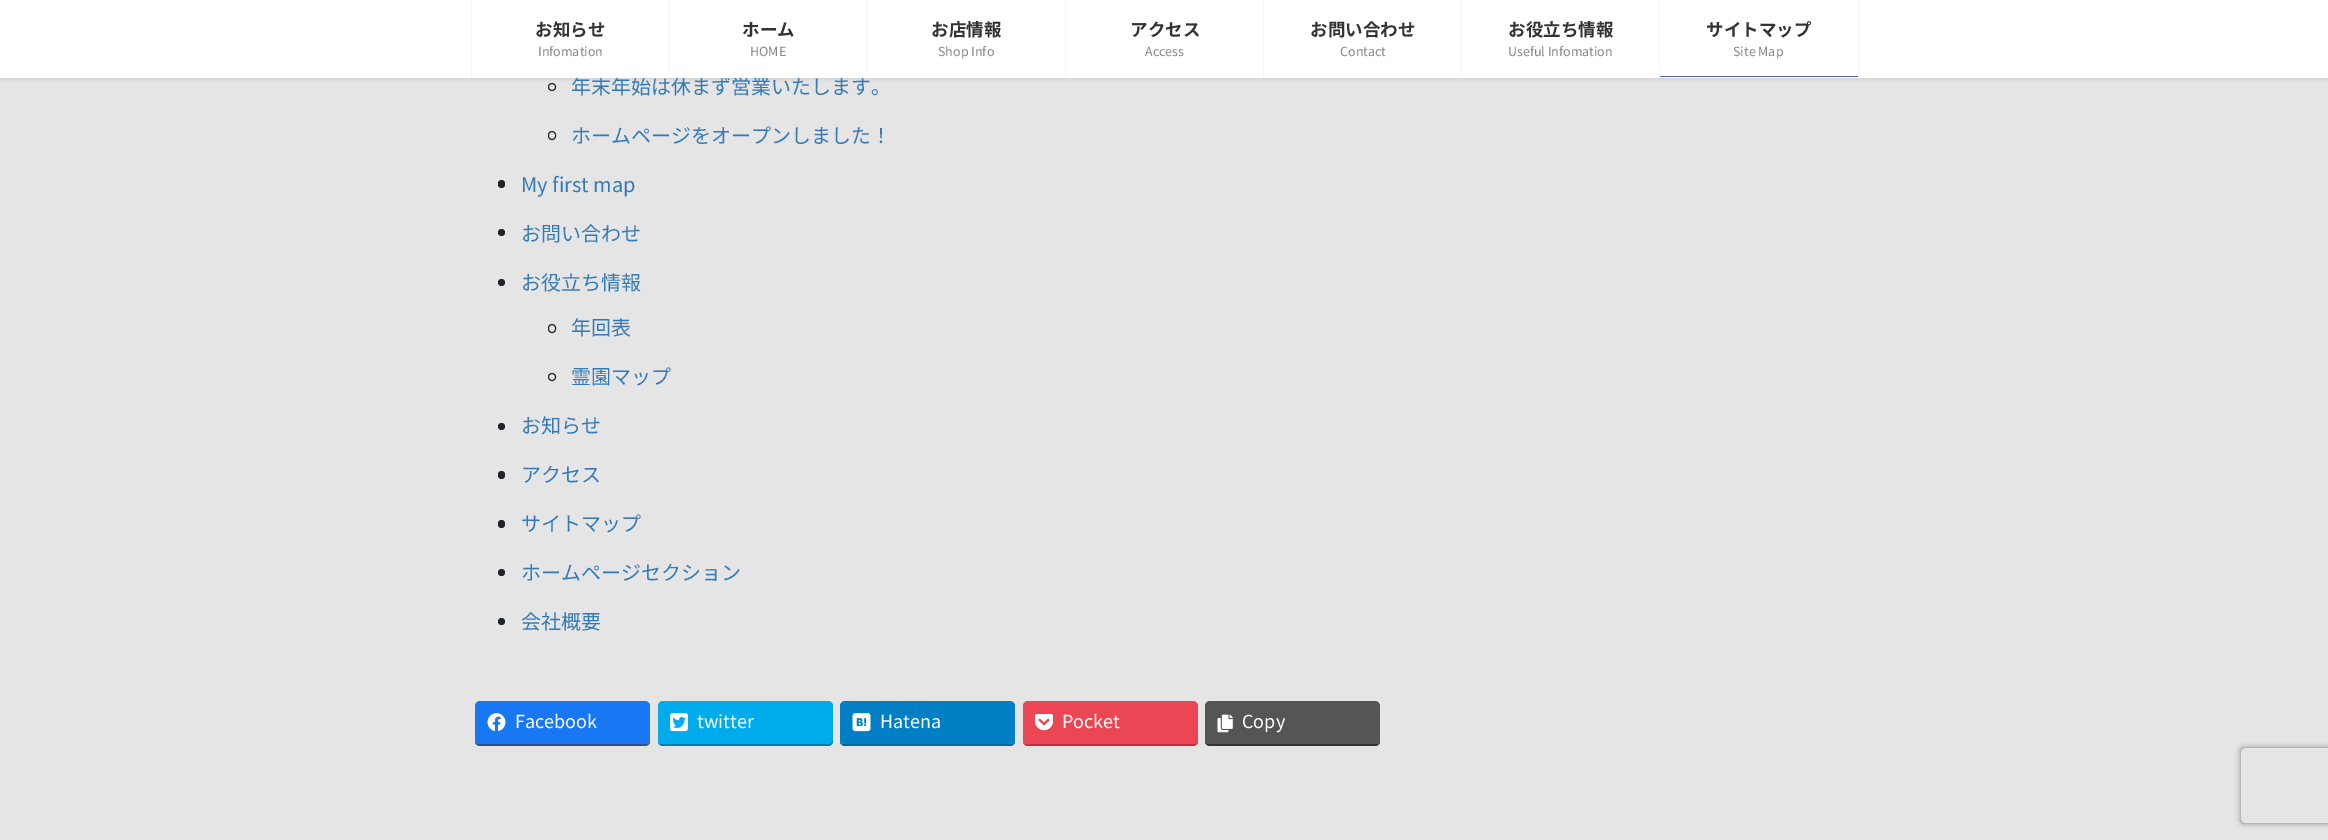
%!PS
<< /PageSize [2328 840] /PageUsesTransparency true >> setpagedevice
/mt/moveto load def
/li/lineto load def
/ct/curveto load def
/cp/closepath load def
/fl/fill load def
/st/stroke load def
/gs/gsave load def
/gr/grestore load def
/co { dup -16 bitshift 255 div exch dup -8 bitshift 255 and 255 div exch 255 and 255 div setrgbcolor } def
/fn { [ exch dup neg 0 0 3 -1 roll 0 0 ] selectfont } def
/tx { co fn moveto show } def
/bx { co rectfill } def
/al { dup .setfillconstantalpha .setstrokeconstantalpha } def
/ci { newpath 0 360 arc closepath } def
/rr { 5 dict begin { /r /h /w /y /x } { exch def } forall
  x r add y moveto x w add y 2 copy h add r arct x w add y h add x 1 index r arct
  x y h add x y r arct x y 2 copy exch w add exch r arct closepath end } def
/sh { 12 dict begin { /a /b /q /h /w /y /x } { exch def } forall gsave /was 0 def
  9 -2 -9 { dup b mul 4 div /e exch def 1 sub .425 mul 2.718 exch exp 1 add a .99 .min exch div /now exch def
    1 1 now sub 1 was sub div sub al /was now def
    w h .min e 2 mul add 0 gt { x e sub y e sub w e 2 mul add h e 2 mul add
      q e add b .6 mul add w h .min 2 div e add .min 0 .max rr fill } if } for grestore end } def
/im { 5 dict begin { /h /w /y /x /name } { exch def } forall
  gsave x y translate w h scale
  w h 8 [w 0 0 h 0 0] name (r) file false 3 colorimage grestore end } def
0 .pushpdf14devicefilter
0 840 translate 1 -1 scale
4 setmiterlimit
0 0 2328 840 16#E5E5E5 bx
16#212529 co
552 87 3.5 ci st
16#000000 co
0 1 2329 78 0 2 .1 sh
16#212529 co
548.5 131.5 7 8 3.5 rr st
498 180 7 8 3.5 rr fl
501.5 232.5 3.5 ci fl
501.5 282.5 3.5 ci fl
548.5 324.5 7 8 3.5 rr st
552 377 3.5 ci st
501.5 426.5 3.5 ci fl
498 471 7 8 3.5 rr fl
498 520 7 8 3.5 rr fl
501.5 572.5 3.5 ci fl
501.5 621.5 3.5 ci fl
16#344E84 co
475 739 mt 475 741 li 475 744 477 746 480 746 ct 645 746 li 648 746 650 744 650 741 ct 650 739 li 650 742 648 744 645 744 ct 480 744 li 477 744 475 742 475 739 ct cp fl
16#1877F2 co
475 701 175 43 5 rr fl
(media/1.raw) 487 713 19 19 im
16#007EAA co
658 741 mt 658 744 660 746 663 746 ct 828 746 li 831 746 833 744 833 741 ct 833 709 li 832 707 li 832 739 li 832 742 830 744 828 744 ct 662 744 li 661 744 659 743 658 741 ct cp fl
16#00ABEC co
658 701 175 43 5 rr fl
(media/2.raw) 670 713 18 19 im
16#00679F co
840 739 mt 840 741 li 840 744 842 746 845 746 ct 1010 746 li 1013 746 1015 744 1015 741 ct 1015 739 li 1015 742 1013 744 1010 744 ct 845 744 li 842 744 840 742 840 739 ct cp fl
16#007FC5 co
840 701 175 43 5 rr fl
(media/3.raw) 852 713 19 19 im
16#C1303C co
1023 741 mt 1023 744 1025 746 1028 746 ct 1193 746 li 1196 746 1198 744 1198 741 ct 1198 709 li 1198 707 li 1198 739 li 1198 742 1195 744 1192 744 ct 1028 744 li 1026 744 1024 743 1023 741 ct cp fl
16#EA4654 co
1023 701 175 43 5 rr fl
(media/4.raw) 1035 714 18 17 im
16#333333 co
1205 739 mt 1205 741 li 1205 744 1207 746 1210 746 ct 1375 746 li 1378 746 1380 744 1380 741 ct 1380 739 li 1380 742 1378 744 1375 744 ct 1210 744 li 1207 744 1205 742 1205 739 ct cp fl
16#555555 co
1205 701 175 43 5 rr fl
(media/5.raw) 1217 714 16 19 im
gs
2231 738 mt 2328 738 li 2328 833 li 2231 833 li cp 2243.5 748 mt 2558.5 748 li 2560 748 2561 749 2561 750.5 ct 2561 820.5 li 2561 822 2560 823 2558.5 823 ct 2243.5 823 li 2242 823 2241 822 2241 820.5 ct 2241 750.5 li 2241 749 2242 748 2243.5 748 ct cp eoclip newpath
16#808080 co
2241 748 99 75 2.5 3 1 sh
gr
(年末年始は休まず営業いたします。) 571 94 /NotoSansJP-Regular 20 16#337AB7 tx
0 0 2328 78 16#FFFFFF bx
(Site Map) 1733 56 /NotoSansJP-Regular 12.5 16#858585 tx
1660 76 198 1 16#585DB5 bx
(サイトマップ) 1706 36 /NotoSansJP-Bold 17.5 16#333333 tx
1659 0 1 78 16#F5F5F5 bx
1858 0 1 78 16#F5F5F5 bx
(Useful Infomation) 1508 56 /NotoSansJP-Regular 12.5 16#858585 tx
(お役立ち情報) 1508 36 /NotoSansJP-Bold 17.5 16#333333 tx
1461 0 1 78 16#F5F5F5 bx
(Contact) 1340 56 /NotoSansJP-Regular 12.5 16#858585 tx
(お問い合わせ) 1310 36 /NotoSansJP-Bold 17.5 16#333333 tx
1263 0 1 78 16#F5F5F5 bx
(Access) 1145 56 /NotoSansJP-Regular 12.5 16#858585 tx
(アクセス) 1130 36 /NotoSansJP-Bold 17.5 16#333333 tx
1065 0 1 78 16#F5F5F5 bx
(Shop Info) 938 56 /NotoSansJP-Regular 12.5 16#858585 tx
(お店情報) 931 36 /NotoSansJP-Bold 17.5 16#333333 tx
866 0 1 78 16#F5F5F5 bx
(HOME) 750 56 /NotoSansJP-Regular 12.5 16#858585 tx
(ホーム) 742 36 /NotoSansJP-Bold 17.5 16#333333 tx
669 0 1 78 16#F5F5F5 bx
(Infomation) 538 56 /NotoSansJP-Regular 12.5 16#858585 tx
(お知らせ) 535 36 /NotoSansJP-Bold 17.5 16#333333 tx
471 0 1 78 16#F5F5F5 bx
(ホームページをオープンしました！) 571 143 /NotoSansJP-Regular 20 16#337AB7 tx
(My first map) 521 192 /NotoSansJP-Regular 20 16#337AB7 tx
(お問い合わせ) 521 241 /NotoSansJP-Regular 20 16#337AB7 tx
(お役立ち情報) 521 290 /NotoSansJP-Regular 20 16#337AB7 tx
(年回表) 571 335 /NotoSansJP-Regular 20 16#337AB7 tx
(霊園マップ) 571 384 /NotoSansJP-Regular 20 16#337AB7 tx
(お知らせ) 521 433 /NotoSansJP-Regular 20 16#337AB7 tx
(アクセス) 521 482 /NotoSansJP-Regular 20 16#337AB7 tx
(サイトマップ) 521 531 /NotoSansJP-Regular 20 16#337AB7 tx
(ホームページセクション) 521 580 /NotoSansJP-Regular 20 16#337AB7 tx
(会社概要) 521 629 /NotoSansJP-Regular 20 16#337AB7 tx
(Facebook) 515 728 /NotoSansJP-Regular 18 16#FFFFFF tx
(twitter) 697 728 /NotoSansJP-Regular 18 16#FFFFFF tx
(Hatena) 880 728 /NotoSansJP-Regular 18 16#FFFFFF tx
(Pocket) 1062 728 /NotoSansJP-Regular 18 16#FFFFFF tx
(Copy) 1242 728 /NotoSansJP-Regular 18 16#FFFFFF tx
.poppdf14devicefilter showpage
